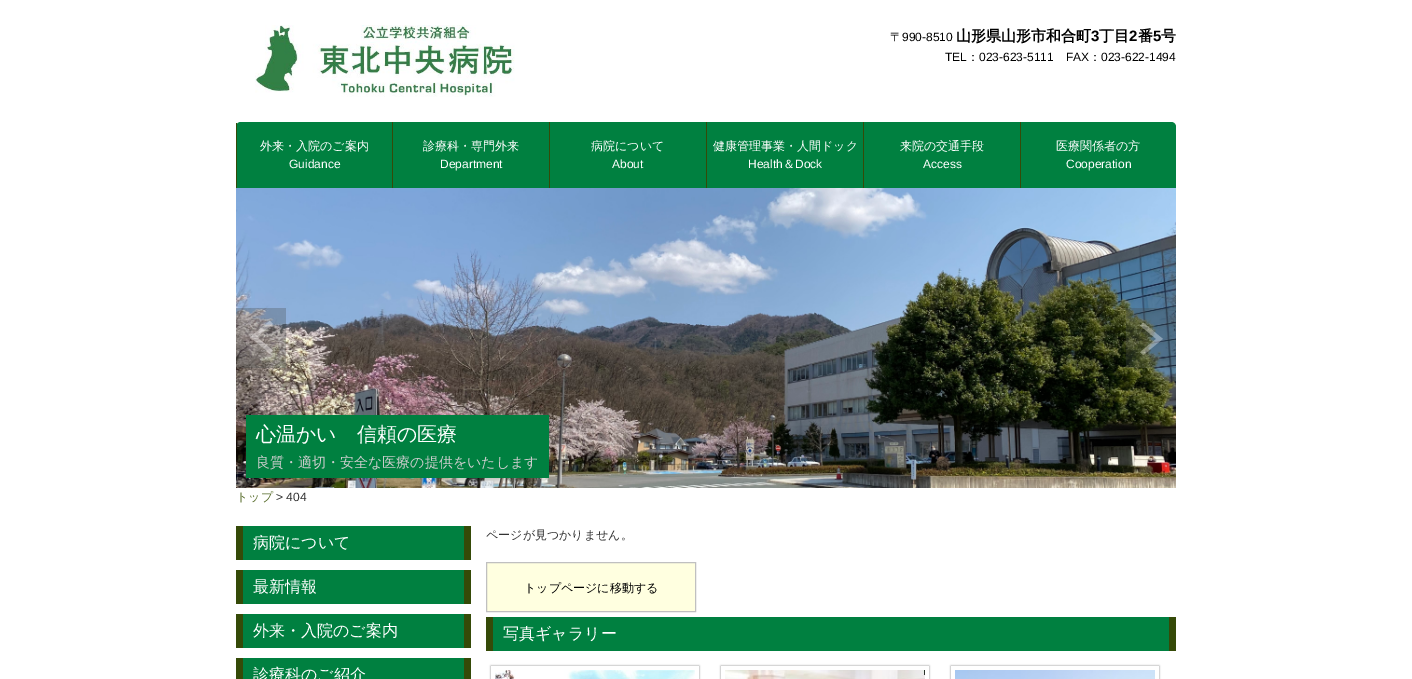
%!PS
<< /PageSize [1412 679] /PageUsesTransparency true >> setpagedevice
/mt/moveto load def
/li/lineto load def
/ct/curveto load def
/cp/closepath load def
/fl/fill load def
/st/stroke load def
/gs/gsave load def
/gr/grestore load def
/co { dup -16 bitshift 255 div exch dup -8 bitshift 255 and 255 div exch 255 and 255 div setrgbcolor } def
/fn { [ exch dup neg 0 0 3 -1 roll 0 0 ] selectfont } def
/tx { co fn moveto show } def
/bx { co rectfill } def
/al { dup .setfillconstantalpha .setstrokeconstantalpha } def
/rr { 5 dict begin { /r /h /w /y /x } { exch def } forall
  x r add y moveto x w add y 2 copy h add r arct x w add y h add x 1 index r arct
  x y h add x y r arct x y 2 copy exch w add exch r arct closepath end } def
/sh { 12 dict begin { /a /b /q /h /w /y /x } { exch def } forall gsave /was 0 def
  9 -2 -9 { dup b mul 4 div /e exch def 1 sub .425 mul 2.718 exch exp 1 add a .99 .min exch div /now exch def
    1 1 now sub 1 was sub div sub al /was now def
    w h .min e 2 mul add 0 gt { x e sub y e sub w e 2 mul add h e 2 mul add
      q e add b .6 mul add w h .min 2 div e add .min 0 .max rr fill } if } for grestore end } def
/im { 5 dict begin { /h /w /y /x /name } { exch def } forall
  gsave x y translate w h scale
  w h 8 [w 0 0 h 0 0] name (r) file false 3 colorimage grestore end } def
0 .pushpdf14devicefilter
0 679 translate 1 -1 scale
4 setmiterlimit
0 0 1412 679 16#FFFFFF bx
(media/1.raw) 255 25 260 72 im
16#008040 co
241 122 mt 1171 122 li 1174 122 1176 124 1176 127 ct 1176 188 li 236 188 li 236 127 li 236 124 238 122 241 122 ct cp fl
gs
241 122 mt 1171 122 li 1174 122 1176 124 1176 127 ct 1176 188 li 236 188 li 236 127 li 236 124 238 122 241 122 ct cp clip newpath
236 122 1 66 16#354A08 bx
gr
392 122 1 66 16#354A08 bx
549 122 1 66 16#354A08 bx
706 122 1 66 16#354A08 bx
863 122 1 66 16#354A08 bx
1020 122 1 66 16#354A08 bx
(media/2.raw) 236 188 940 300 im
(media/3.raw) 236 308 50 60 im
(media/4.raw) 1126 308 50 60 im
246 415 303 63 16#008040 bx
243 526 221 34 16#008040 bx
464 526 7 34 16#354A08 bx
236 526 7 34 16#354A08 bx
243 570 221 34 16#008040 bx
464 570 7 34 16#354A08 bx
236 570 7 34 16#354A08 bx
243 614 221 34 16#008040 bx
464 614 7 34 16#354A08 bx
236 614 7 34 16#354A08 bx
243 658 221 21 16#008040 bx
464 658 7 21 16#354A08 bx
236 658 7 21 16#354A08 bx
16#FFFFE0 co
486.5 562.5 mt 695.5 562.5 li 695.5 611.5 li 486.5 611.5 li cp gs fl gr
16#C0C0C0 co
st
493 617 676 34 16#008040 bx
1169 617 7 34 16#354A08 bx
486 617 7 34 16#354A08 bx
gs
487 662 mt 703 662 li 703 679 li 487 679 li cp 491 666 mt 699 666 li 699 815 li 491 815 li cp eoclip newpath
16#000000 co
491 666 208 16 0 1 .5 sh
gr
(media/5.raw) 495 670 200 9 im
gs
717 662 mt 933 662 li 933 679 li 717 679 li cp 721 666 mt 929 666 li 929 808 li 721 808 li cp eoclip newpath
16#000000 co
721 666 208 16 0 1 .5 sh
gr
(media/6.raw) 725 670 200 9 im
gs
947 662 mt 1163 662 li 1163 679 li 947 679 li cp 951 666 mt 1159 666 li 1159 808 li 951 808 li cp eoclip newpath
16#000000 co
951 666 208 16 0 1 .5 sh
gr
(media/7.raw) 955 670 200 9 im
(〒) 890 41 /WenQuanYiZenHei-Medium 12 16#000000 tx
(990-8510) 902 41 /LiberationSans-Regular 12 16#000000 tx
(山形県山形市和合町) 956 41 /WenQuanYiZenHei-Bold 15 16#000000 tx
(3) 1091 41 /LiberationSans-Bold 15 16#000000 tx
(丁目) 1099 41 /WenQuanYiZenHei-Bold 15 16#000000 tx
(2) 1129 41 /LiberationSans-Bold 15 16#000000 tx
(番) 1138 41 /WenQuanYiZenHei-Bold 15 16#000000 tx
(5) 1153 41 /LiberationSans-Bold 15 16#000000 tx
(号) 1161 41 /WenQuanYiZenHei-Bold 15 16#000000 tx
(TEL) 945 61 /LiberationSans-Regular 12 16#000000 tx
(：) 967 61 /WenQuanYiZenHei-Medium 12 16#000000 tx
(023-623-5111) 979 61 /LiberationSans-Regular 12 16#000000 tx
(FAX) 1066 61 /LiberationSans-Regular 12 16#000000 tx
(：) 1089 61 /WenQuanYiZenHei-Medium 12 16#000000 tx
(023-622-1494) 1101 61 /LiberationSans-Regular 12 16#000000 tx
(外来・入院のご案内) 260 150 /WenQuanYiZenHei-Medium 12 16#FFFFFF tx
(Guidance) 289 168 /LiberationSans-Regular 12 16#FFFFFF tx
(診療科・専門外来) 423 150 /WenQuanYiZenHei-Medium 12 16#FFFFFF tx
(Department) 440 168 /LiberationSans-Regular 12 16#FFFFFF tx
(病院について) 591 150 /WenQuanYiZenHei-Medium 12 16#FFFFFF tx
(About) 612 168 /LiberationSans-Regular 12 16#FFFFFF tx
(健康管理事業・人間ドック) 713 150 /WenQuanYiZenHei-Medium 12 16#FFFFFF tx
(Health) 748 168 /LiberationSans-Regular 12 16#FFFFFF tx
(＆) 783 168 /WenQuanYiZenHei-Medium 12 16#FFFFFF tx
(Dock) 795 168 /LiberationSans-Regular 12 16#FFFFFF tx
(来院の交通手段) 900 150 /WenQuanYiZenHei-Medium 12 16#FFFFFF tx
(Access) 923 168 /LiberationSans-Regular 12 16#FFFFFF tx
(医療関係者の方) 1056 150 /WenQuanYiZenHei-Medium 12 16#FFFFFF tx
(Cooperation) 1066 168 /LiberationSans-Regular 12 16#FFFFFF tx
(心温かい　信頼の医療) 256 441 /WenQuanYiZenHei-Medium 20 16#FFFFFF tx
(良質・適切・安全な医療の提供をいたします) 256 467 /WenQuanYiZenHei-Medium 14 16#CCCCCC tx
(トップ) 236 501 /WenQuanYiZenHei-Medium 12 16#5A6F2E tx
(> 404) 276 501 /LiberationSans-Regular 12 16#333333 tx
(病院について) 253 548 /WenQuanYiZenHei-Medium 16 16#FFFFFF tx
(最新情報) 253 592 /WenQuanYiZenHei-Medium 16 16#FFFFFF tx
(外来・入院のご案内) 253 636 /WenQuanYiZenHei-Medium 16 16#FFFFFF tx
(診療科のご紹介) 253 680 /WenQuanYiZenHei-Medium 16 16#FFFFFF tx
(ページが見つかりません。) 486 539 /WenQuanYiZenHei-Medium 12 16#333333 tx
(トップページに移動する) 524 592 /WenQuanYiZenHei-Medium 12 16#000000 tx
(写真ギャラリー) 503 639 /WenQuanYiZenHei-Medium 16 16#FFFFFF tx
.poppdf14devicefilter showpage
